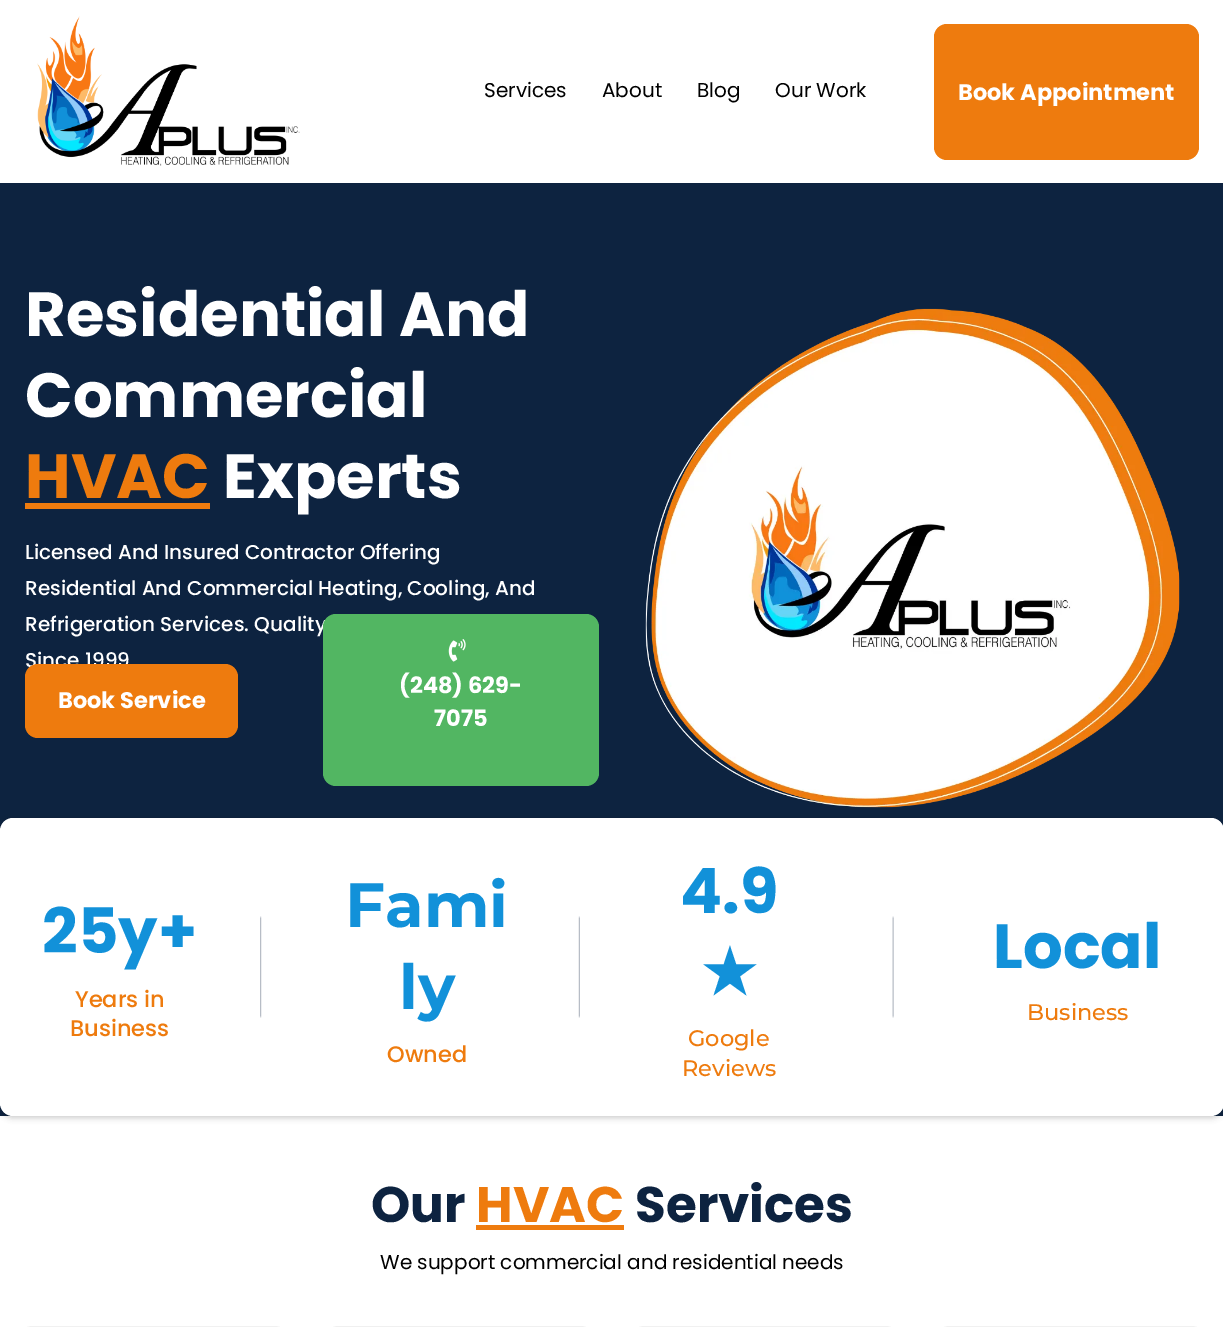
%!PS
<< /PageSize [1223 1327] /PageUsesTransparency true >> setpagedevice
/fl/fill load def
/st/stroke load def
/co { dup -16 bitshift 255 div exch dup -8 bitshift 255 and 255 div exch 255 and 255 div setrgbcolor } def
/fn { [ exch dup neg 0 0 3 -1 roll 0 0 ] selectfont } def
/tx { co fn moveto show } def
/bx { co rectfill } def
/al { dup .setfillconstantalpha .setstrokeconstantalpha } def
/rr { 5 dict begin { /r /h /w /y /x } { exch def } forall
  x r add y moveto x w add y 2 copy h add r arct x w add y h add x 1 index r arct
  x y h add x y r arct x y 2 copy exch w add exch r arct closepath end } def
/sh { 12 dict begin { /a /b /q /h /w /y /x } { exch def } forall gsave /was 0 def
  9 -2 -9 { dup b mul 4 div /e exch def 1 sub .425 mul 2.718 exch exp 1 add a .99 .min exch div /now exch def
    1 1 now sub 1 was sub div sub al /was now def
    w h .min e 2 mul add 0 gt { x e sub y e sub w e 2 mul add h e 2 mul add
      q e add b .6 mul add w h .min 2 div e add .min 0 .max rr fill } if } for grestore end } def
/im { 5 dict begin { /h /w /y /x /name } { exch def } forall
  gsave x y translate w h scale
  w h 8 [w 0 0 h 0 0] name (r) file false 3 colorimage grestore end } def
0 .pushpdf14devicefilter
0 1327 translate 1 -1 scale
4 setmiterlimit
0 0 1223 1327 16#FFFFFF bx
(media/1.raw) 37 16 263 150 im
16#EE7B0E co
934 24 265 136 13 rr fl
0 183 1223 933 16#0D2340 bx
25 503 185 6 16#EE7B0E bx
(media/2.raw) 645 308 535 500 im
16#000000 co
0 819 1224 299 13 3 .2 sh
16#FFFFFF co
0 818 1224 298 13 rr fl
(media/4.raw) 260 916 2 102 im
(media/5.raw) 578 916 2 102 im
(media/6.raw) 892 916 2 102 im
476 1225 148 5 16#EE7B0E bx
16#F1F1F1 co
19.5 1326.5 268 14 12.5 rr st
16#F0F0F0 co
325.5 1326.5 268 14 12.5 rr st
16#F1F1F1 co
631.5 1326.5 267 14 12.5 rr st
936.5 1326.5 268 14 12.5 rr st
(Services) 484 97 /Poppins-Regular 20 16#000000 tx
(About) 602 97 /Poppins-Regular 20 16#000000 tx
(Blog) 697 97 /Poppins-Regular 20 16#000000 tx
(Our Work) 775 97 /Poppins-Regular 20 16#000000 tx
(Book Appointment) 958 100 /Poppins-Bold 22.5 16#FFFFFF tx
(Residential And) 25 336 /Poppins-Bold 62.5 16#FFFFFF tx
(Commercial) 25 417 /Poppins-Bold 62.5 16#FFFFFF tx
(HVAC) 25 498 /Poppins-Bold 62.5 16#EE7B0E tx
(Experts) 223 498 /Poppins-Bold 62.5 16#FFFFFF tx
(Licensed And Insured Contractor Offering) 25 559 /Poppins-Medium 20 16#FFFFFF tx
(Residential And Commercial Heating, Cooling, And) 25 595 /Poppins-Medium 20 16#FFFFFF tx
(Refrigeration Services. Quality) 25 631 /Poppins-Medium 20 16#FFFFFF tx
(Since 1999) 25 667 /Poppins-Medium 20 16#FFFFFF tx
16#EE7B0E co
25 664 213 74 13 rr fl
(Book Service) 58 708 /Poppins-Bold 22.5 16#FFFFFF tx
16#52B662 co
323 614 276 172 13 rr fl
(media/3.raw) 448 639 18 23 im
(\(248\) 629-) 399 693 /Poppins-Bold 22.5 16#FFFFFF tx
(7075) 434 726 /Poppins-Bold 22.5 16#FFFFFF tx
(25y+) 42 953 /Poppins-Bold 62.5 16#1291D9 tx
(Years in) 75 1007 /Poppins-Medium 22.5 16#EE7B0E tx
(Business) 70 1036 /Poppins-Medium 22.5 16#EE7B0E tx
(Fami) 345 927 /Montserrat-Bold 62.5 16#1291D9 tx
(ly) 399 1009 /Montserrat-Bold 62.5 16#1291D9 tx
(Owned) 387 1062 /Poppins-Medium 22.5 16#EE7B0E tx
(4.9) 680 913 /Poppins-Bold 62.5 16#1291D9 tx
(★) 701 994 /DejaVuSans-Bold 62.5 16#1291D9 tx
(Google) 688 1046 /Montserrat-Medium 22.5 16#EE7B0E tx
(Reviews) 682 1076 /Montserrat-Medium 22.5 16#EE7B0E tx
(Local) 993 968 /Poppins-Bold 62.5 16#1291D9 tx
(Business) 1027 1020 /Montserrat-Medium 22.5 16#EE7B0E tx
(Our) 371 1222 /Poppins-Bold 50 16#0D2340 tx
(HVAC) 476 1222 /Poppins-Bold 50 16#EE7B0E tx
(Services) 635 1222 /Poppins-Bold 50 16#0D2340 tx
(We support commercial and residential needs) 380 1269 /Poppins-Regular 20 16#000000 tx
.poppdf14devicefilter showpage
